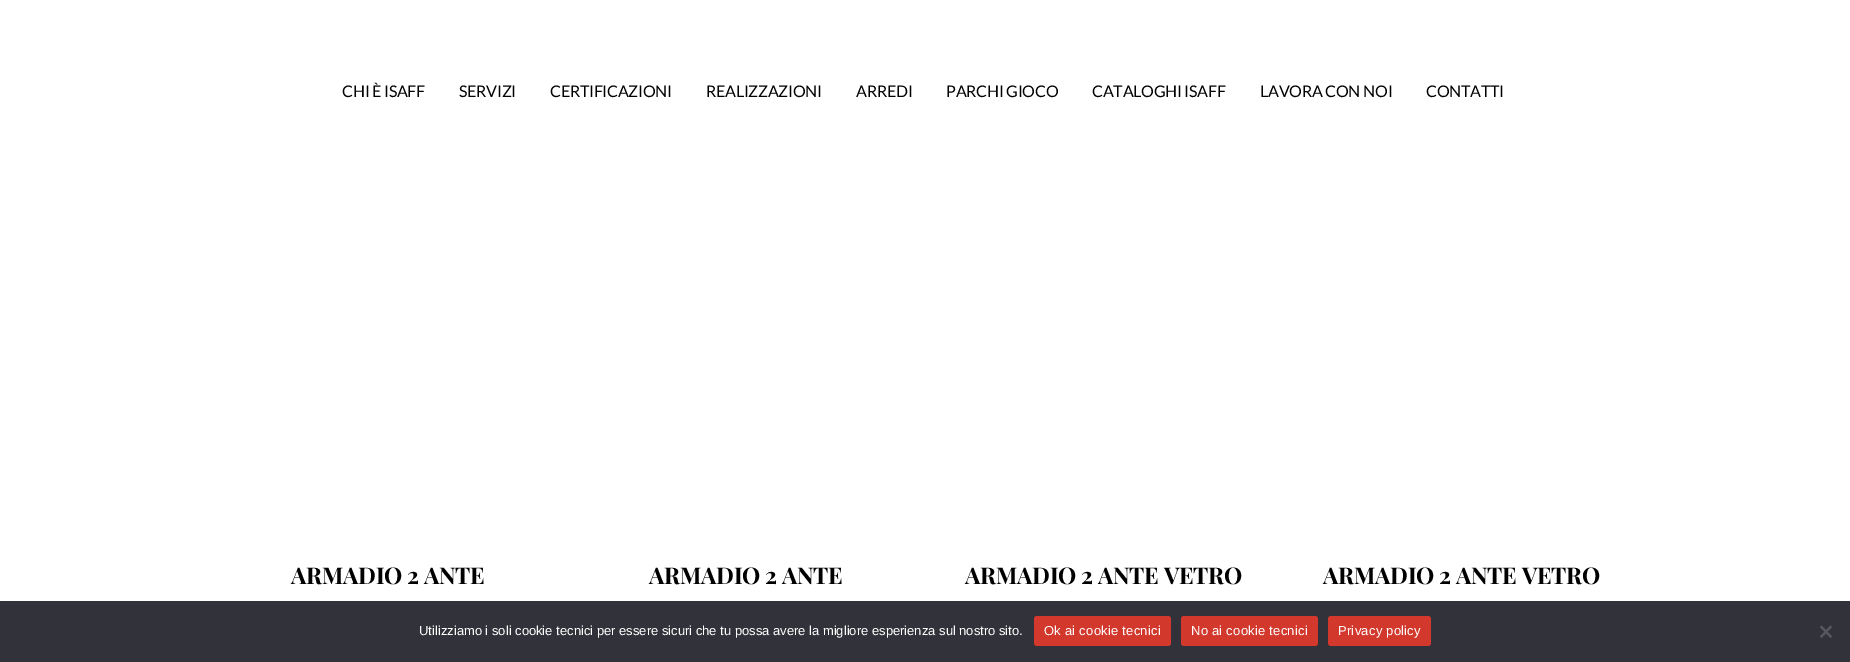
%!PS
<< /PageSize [1850 662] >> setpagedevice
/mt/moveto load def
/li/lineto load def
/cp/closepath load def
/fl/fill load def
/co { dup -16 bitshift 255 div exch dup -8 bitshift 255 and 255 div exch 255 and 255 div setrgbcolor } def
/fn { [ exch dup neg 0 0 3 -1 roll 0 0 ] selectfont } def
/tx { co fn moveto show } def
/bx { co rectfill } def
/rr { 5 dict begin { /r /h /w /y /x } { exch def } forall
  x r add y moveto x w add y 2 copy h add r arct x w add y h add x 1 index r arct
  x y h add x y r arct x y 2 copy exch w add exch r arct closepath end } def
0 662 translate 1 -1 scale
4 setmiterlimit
0 0 1850 662 16#FFFFFF bx
0 601 1850 61 16#32323A bx
16#D3382D co
1034 616 137 30 3 rr fl
1181 616 137 30 3 rr fl
1328 616 103 30 3 rr fl
16#59595D co
1830.5 625.5 mt 1832 627 li 1821.5 638 li 1820 636.5 li cp fl
1820 627 mt 1821.5 625.5 li 1832 636.5 li 1830.5 638 li cp fl
/Lato-Regular 16 fn
16#000000 co
342 97 mt -.25 0 (CHI È ISAFF) ashow
459 97 mt -.25 0 (SERVIZI) ashow
550 97 mt -.25 0 (CERTIFICAZIONI) ashow
706 97 mt -.25 0 (REALIZZAZIONI) ashow
856 97 mt -.25 0 (ARREDI) ashow
946 97 mt -.25 0 (PARCHI GIOCO) ashow
1092 97 mt -.25 0 (CATALOGHI ISAFF) ashow
1260 97 mt -.25 0 (LAVORA CON NOI) ashow
1426 97 mt -.25 0 (CONTATTI) ashow
/PlayfairDisplay-Bold 23 fn
291 584 mt -.25 0 (ARMADIO 2 ANTE) ashow
649 584 mt -.25 0 (ARMADIO 2 ANTE) ashow
965 584 mt -.25 0 (ARMADIO 2 ANTE VETRO) ashow
1323 584 mt -.25 0 (ARMADIO 2 ANTE VETRO) ashow
(Utilizziamo i soli cookie tecnici per essere sicuri che tu possa avere la migliore esperienza sul nostro sito.) 419 635 /LiberationSans-Regular 13 16#FFFFFF tx
1044 635 mt .25 0 (Ok ai cookie tecnici) ashow
1191 635 mt .25 0 (No ai cookie tecnici) ashow
1338 635 mt .25 0 (Privacy policy) ashow
showpage
